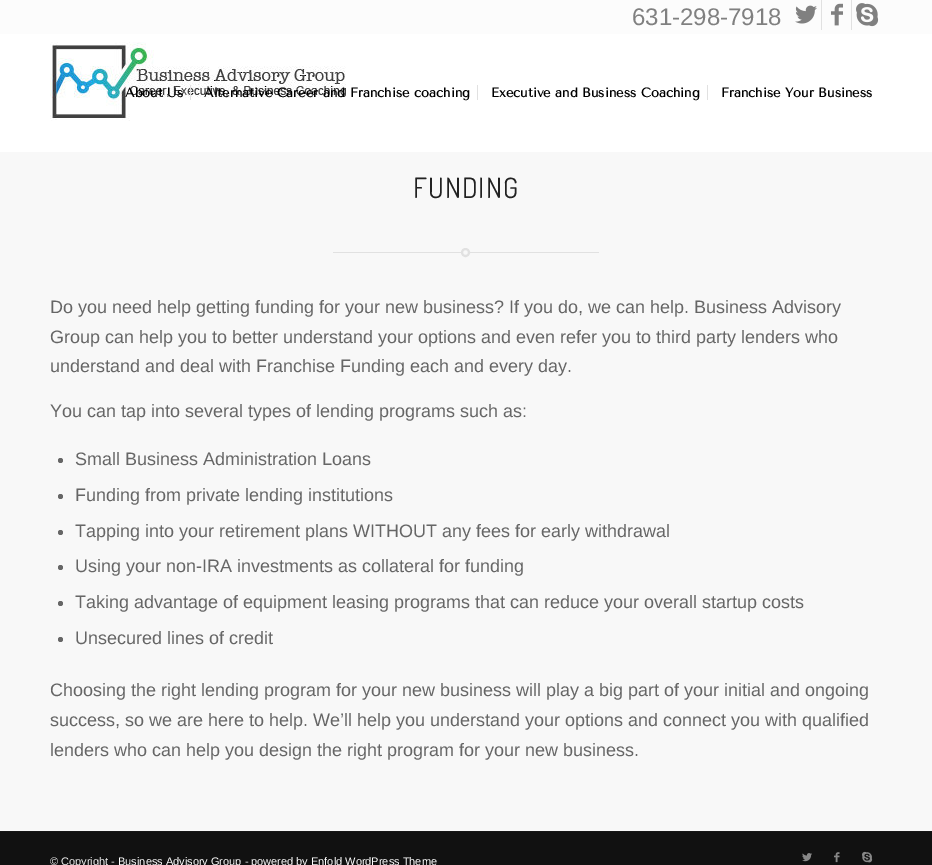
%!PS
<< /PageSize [932 865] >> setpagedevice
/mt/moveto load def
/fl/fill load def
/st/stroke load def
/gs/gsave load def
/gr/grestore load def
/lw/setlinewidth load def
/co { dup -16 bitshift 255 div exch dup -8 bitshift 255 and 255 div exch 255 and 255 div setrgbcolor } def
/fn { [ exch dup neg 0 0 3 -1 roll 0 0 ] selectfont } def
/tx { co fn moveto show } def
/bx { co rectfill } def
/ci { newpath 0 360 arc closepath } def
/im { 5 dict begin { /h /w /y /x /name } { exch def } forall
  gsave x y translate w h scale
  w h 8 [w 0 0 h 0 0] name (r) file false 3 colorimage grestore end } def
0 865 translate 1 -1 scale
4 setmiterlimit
0 0 932 865 16#F8F8F8 bx
0 0 932 34 16#FCFCFC bx
821 0 1 30 16#E1E1E1 bx
(media/1.raw) 795 5 22 19 im
851 0 1 30 16#E1E1E1 bx
(media/2.raw) 831 3 12 23 im
(media/3.raw) 856 3 23 24 im
0 34 932 118 16#FFFFFF bx
(media/4.raw) 50 42 296 79 im
190 85 1 15 16#E1E1E1 bx
477 85 1 15 16#E1E1E1 bx
707 85 1 15 16#E1E1E1 bx
333 252 266 1 16#E1E1E1 bx
16#F8F8F8 co
465.5 252.5 3.5 ci gs fl gr
16#E1E1E1 co
2 lw
st
16#666666 co
60.5 460.5 2.5 ci fl
60.5 496.5 2.5 ci fl
60.5 532.5 2.5 ci fl
60.5 567.5 2.5 ci fl
60.5 603.5 2.5 ci fl
60.5 639.5 2.5 ci fl
0 832 932 33 16#111111 bx
0 831 932 1 16#161616 bx
(media/5.raw) 802 853 10 9 im
(media/6.raw) 834 852 6 11 im
(media/7.raw) 862 851 11 12 im
(631-298-7918) 632 25 /LiberationSans-Regular 24 16#808080 tx
(About Us) 125 97 /TenorSans-Bold 13 16#000000 tx
(Alternative Career and Franchise coaching) 204 97 /TenorSans-Bold 13 16#000000 tx
(Executive and Business Coaching) 491 97 /TenorSans-Bold 13 16#000000 tx
(Franchise Your Business) 721 97 /TenorSans-Bold 13 16#000000 tx
/Dosis-Regular 28 fn
16#222222 co
413 198 mt 1 0 (FUNDING) ashow
(Do you need help getting funding for your new business? If you do, we can help. Business Advisory) 50 313 /LiberationSans-Regular 18 16#666666 tx
(Group can help you to better understand your options and even refer you to third party lenders who) 50 343 /LiberationSans-Regular 18 16#666666 tx
(understand and deal with Franchise Funding each and every day.) 50 372 /LiberationSans-Regular 18 16#666666 tx
(You can tap into several types of lending programs such as:) 50 417 /LiberationSans-Regular 18 16#666666 tx
(Small Business Administration Loans) 75 465 /LiberationSans-Regular 18 16#666666 tx
(Funding from private lending institutions) 75 501 /LiberationSans-Regular 18 16#666666 tx
(Tapping into your retirement plans WITHOUT any fees for early withdrawal) 75 537 /LiberationSans-Regular 18 16#666666 tx
(Using your non-IRA investments as collateral for funding) 75 572 /LiberationSans-Regular 18 16#666666 tx
(Taking advantage of equipment leasing programs that can reduce your overall startup costs) 75 608 /LiberationSans-Regular 18 16#666666 tx
(Unsecured lines of credit) 75 644 /LiberationSans-Regular 18 16#666666 tx
(Choosing the right lending program for your new business will play a big part of your initial and ongoing) 50 696 /LiberationSans-Regular 18 16#666666 tx
(success, so we are here to help. We’ll help you understand your options and connect you with qualified) 50 726 /LiberationSans-Regular 18 16#666666 tx
(lenders who can help you design the right program for your new business.) 50 756 /LiberationSans-Regular 18 16#666666 tx
(© Copyright -) 50 865 /LiberationSans-Regular 11 16#EEEEEE tx
(Business Advisory Group) 118 865 /LiberationSans-Regular 11 16#FFFFFF tx
(-) 245 865 /LiberationSans-Regular 11 16#EEEEEE tx
(powered by Enfold WordPress Theme) 251 865 /LiberationSans-Regular 11 16#FFFFFF tx
showpage
